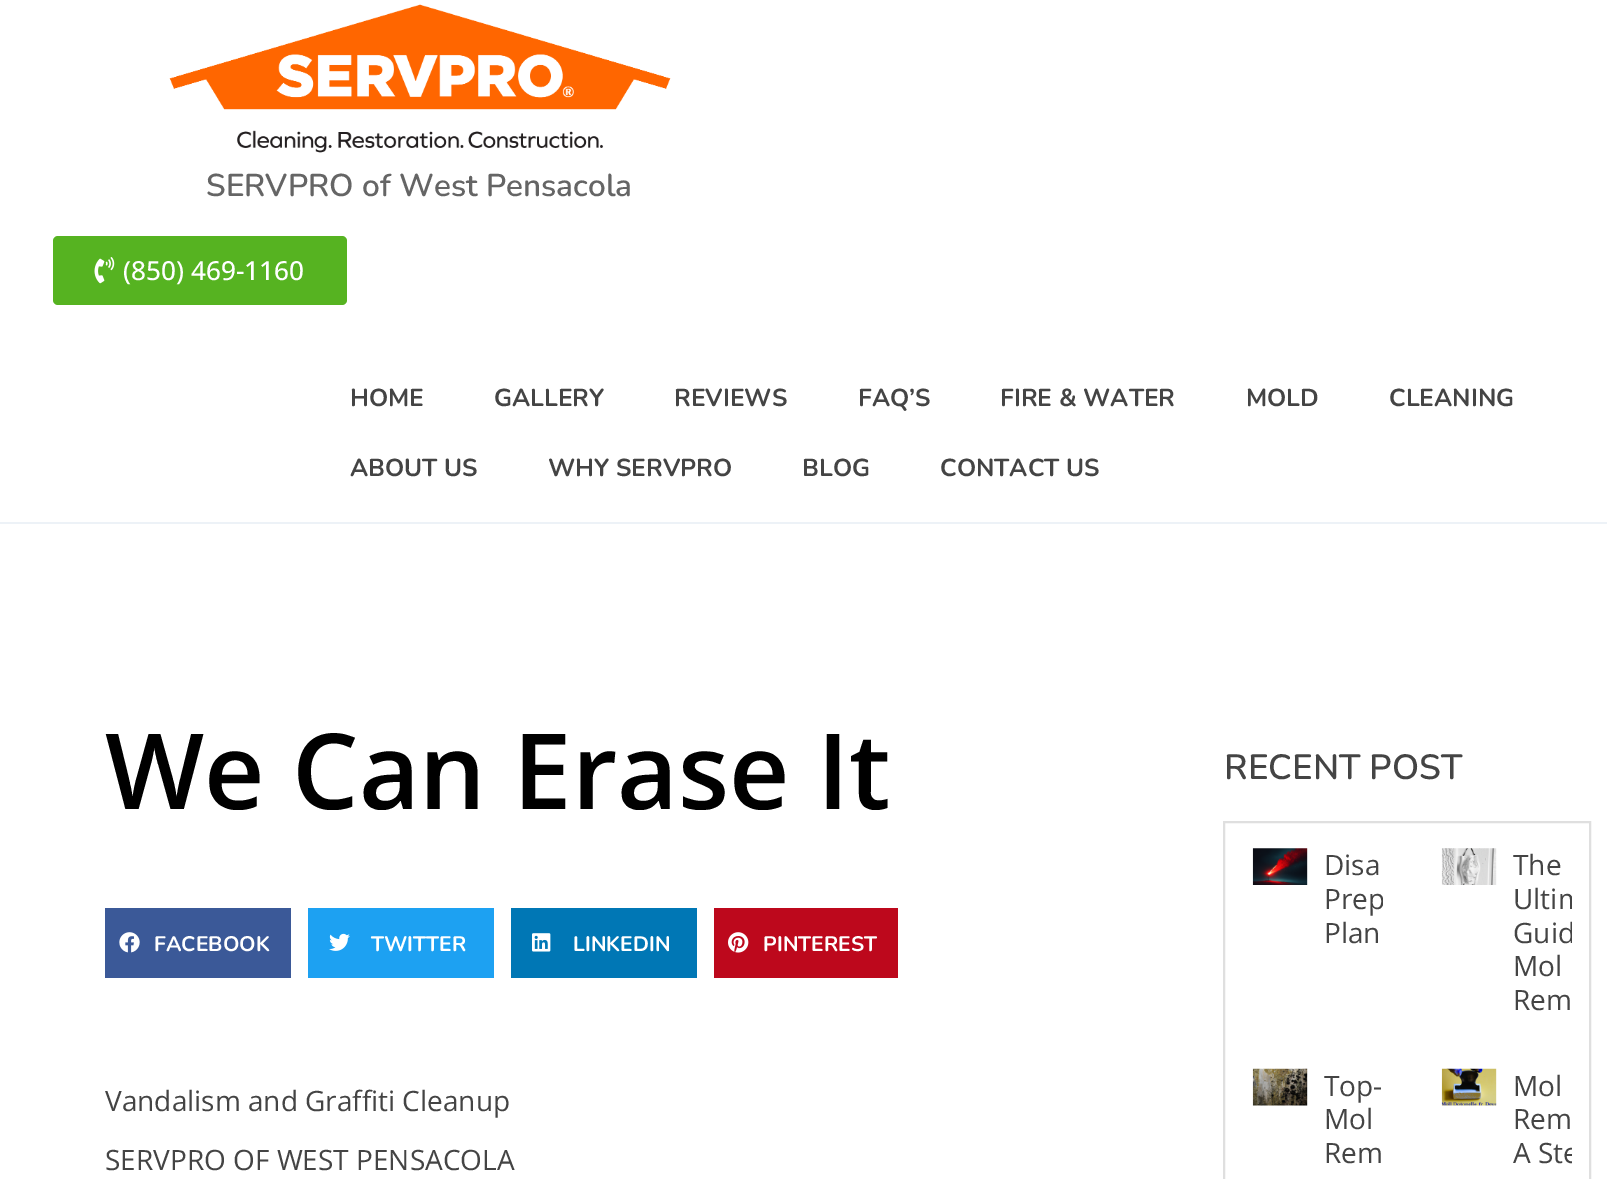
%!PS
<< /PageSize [1607 1179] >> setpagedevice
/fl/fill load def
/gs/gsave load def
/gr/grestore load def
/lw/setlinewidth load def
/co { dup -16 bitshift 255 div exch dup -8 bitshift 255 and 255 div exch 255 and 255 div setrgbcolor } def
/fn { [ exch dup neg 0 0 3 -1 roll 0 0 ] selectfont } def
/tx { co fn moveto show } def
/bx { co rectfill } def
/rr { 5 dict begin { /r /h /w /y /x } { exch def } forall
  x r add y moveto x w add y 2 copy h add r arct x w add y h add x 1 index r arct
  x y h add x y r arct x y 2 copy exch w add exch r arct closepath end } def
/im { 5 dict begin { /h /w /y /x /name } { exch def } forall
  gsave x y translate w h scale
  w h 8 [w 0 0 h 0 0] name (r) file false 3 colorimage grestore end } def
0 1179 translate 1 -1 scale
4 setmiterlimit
0 0 1607 1179 16#FFFFFF bx
(media/1.raw) 169 4 502 149 im
16#56B321 co
53 236 294 69 5 rr fl
(media/2.raw) 94 257 21 27 im
0 522 1607 2 16#EDF2F7 bx
105 908 186 70 16#3B5998 bx
(media/3.raw) 119 932 21 21 im
308 908 186 70 16#1DA1F2 bx
(media/4.raw) 329 933 21 18 im
511 908 186 70 16#0077B5 bx
(media/5.raw) 532 933 19 19 im
714 908 184 70 16#BD081C bx
(media/6.raw) 728 932 21 21 im
16#DFDFDF co
2 lw
1224 822 366 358 rectstroke
(media/7.raw) 1252 848 56 37 im
(media/8.raw) 1441 848 56 37 im
(media/9.raw) 1252 1068 56 38 im
(media/10.raw) 1441 1068 56 38 im
(SERVPRO of West Pensacola) 206 196 /Nunito-SemiBold 31.5 16#656565 tx
(\(850\) 469-1160) 123 280 /OpenSans-Medium 26.25 16#FFFFFF tx
(HOME) 350 406 /Nunito-Bold 24.5 16#444444 tx
(GALLERY) 494 406 /Nunito-Bold 24.5 16#444444 tx
(REVIEWS) 674 406 /Nunito-Bold 24.5 16#444444 tx
(FAQ’S) 858 406 /Nunito-Bold 24.5 16#444444 tx
(FIRE & WATER) 1000 406 /Nunito-Bold 24.5 16#444444 tx
(MOLD) 1246 406 /Nunito-Bold 24.5 16#444444 tx
(CLEANING) 1389 406 /Nunito-Bold 24.5 16#444444 tx
(ABOUT US) 350 476 /Nunito-Bold 24.5 16#444444 tx
(WHY SERVPRO) 548 476 /Nunito-Bold 24.5 16#444444 tx
(BLOG) 802 476 /Nunito-Bold 24.5 16#444444 tx
(CONTACT US) 940 476 /Nunito-Bold 24.5 16#444444 tx
(We Can Erase It) 105 809 /OpenSans-SemiBold 105 16#000000 tx
(FACEBOOK) 154 951 /Nunito-Bold 21 16#FFFFFF tx
(TWITTER) 371 951 /Nunito-Bold 21 16#FFFFFF tx
(LINKEDIN) 573 951 /Nunito-Bold 21 16#FFFFFF tx
(PINTEREST) 763 951 /Nunito-Bold 21 16#FFFFFF tx
(Vandalism and Graffiti Cleanup) 105 1111 /OpenSans-Regular 28 16#444444 tx
(SERVPRO OF WEST PENSACOLA) 105 1170 /OpenSans-Regular 28 16#444444 tx
(RECENT POST) 1224 779 /Nunito-SemiBold 35 16#444444 tx
(Disa) 1324 875 /OpenSans-Regular 28 16#444444 tx
gs
1243 840 140 186 rectclip
(Prep) 1324 909 /OpenSans-Regular 28 16#444444 tx
gr
(Plan) 1324 943 /OpenSans-Regular 28 16#444444 tx
(The) 1513 875 /OpenSans-Regular 28 16#444444 tx
gs
1432 840 140 186 rectclip
(Ultim) 1513 909 /OpenSans-Regular 28 16#444444 tx
(Guid) 1513 943 /OpenSans-Regular 28 16#444444 tx
gr
(Mol) 1513 976 /OpenSans-Regular 28 16#444444 tx
(Rem) 1513 1010 /OpenSans-Regular 28 16#444444 tx
(Top-) 1324 1096 /OpenSans-Regular 28 16#444444 tx
(Mol) 1324 1129 /OpenSans-Regular 28 16#444444 tx
(Rem) 1324 1163 /OpenSans-Regular 28 16#444444 tx
(Mol) 1513 1096 /OpenSans-Regular 28 16#444444 tx
(Rem) 1513 1129 /OpenSans-Regular 28 16#444444 tx
gs
1432 1061 140 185 rectclip
(A Ste) 1513 1163 /OpenSans-Regular 28 16#444444 tx
gr
showpage
